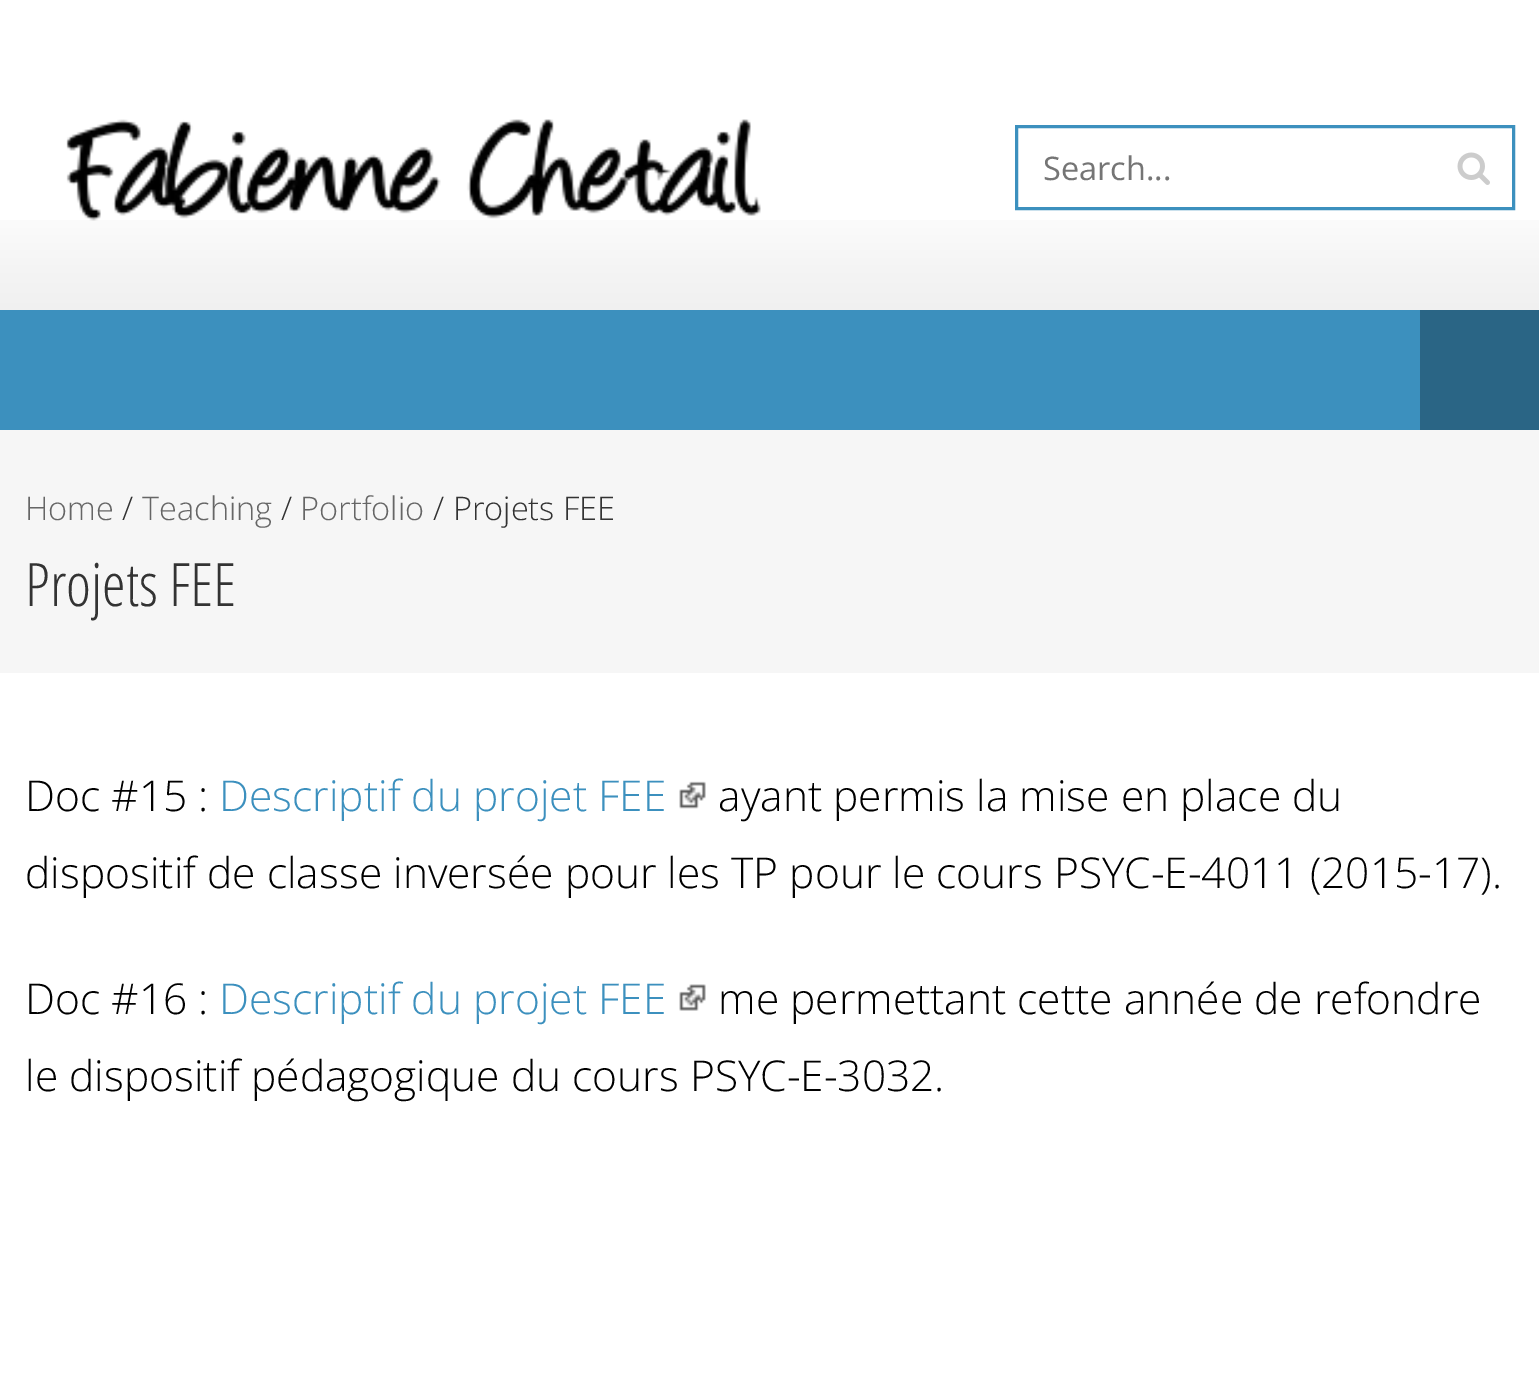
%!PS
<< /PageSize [1539 1385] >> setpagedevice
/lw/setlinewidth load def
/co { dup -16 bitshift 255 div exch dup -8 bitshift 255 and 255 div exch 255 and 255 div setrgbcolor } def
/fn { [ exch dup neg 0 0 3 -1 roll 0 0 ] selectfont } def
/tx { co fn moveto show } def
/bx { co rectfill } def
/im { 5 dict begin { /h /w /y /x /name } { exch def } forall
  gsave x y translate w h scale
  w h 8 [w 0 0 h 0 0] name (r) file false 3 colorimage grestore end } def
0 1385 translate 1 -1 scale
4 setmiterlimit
0 0 1539 1385 16#FFFFFF bx
(media/1.raw) 0 220 1539 90 im
(media/2.raw) 66 119 695 102 im
16#3C90BE co
3 lw
1016.5 126.5 497 82 rectstroke
(media/3.raw) 1457 152 33 33 im
0 310 1420 120 16#3C90BE bx
1420 310 119 120 16#2A6585 bx
0 430 1539 243 16#F6F6F6 bx
(media/4.raw) 679 781 27 28 im
(media/5.raw) 679 984 27 27 im
(Search...) 1043 180 /OpenSans-Regular 32.5 16#757575 tx
(Home) 25 520 /OpenSans-Light 32.5 16#666666 tx
(/) 122 520 /OpenSans-Light 32.5 16#333333 tx
(Teaching) 142 520 /OpenSans-Light 32.5 16#666666 tx
(/) 281 520 /OpenSans-Light 32.5 16#333333 tx
(Portfolio) 300 520 /OpenSans-Light 32.5 16#666666 tx
(/ Projets FEE) 433 520 /OpenSans-Light 32.5 16#333333 tx
(Projets FEE) 25 606 /OpenSansCondensed-Light 60 16#333333 tx
(Doc #15 :) 25 811 /OpenSans-Light 42.5 16#000000 tx
(Descriptif du projet FEE) 219 811 /OpenSans-Light 42.5 16#3C90BE tx
(ayant permis la mise en place du) 718 811 /OpenSans-Light 42.5 16#000000 tx
(dispositif de classe inversée pour les TP pour le cours PSYC-E-4011 \(2015-17\).) 25 888 /OpenSans-Light 42.5 16#000000 tx
(Doc #16 :) 25 1014 /OpenSans-Light 42.5 16#000000 tx
(Descriptif du projet FEE) 219 1014 /OpenSans-Light 42.5 16#3C90BE tx
(me permettant cette année de refondre) 718 1014 /OpenSans-Light 42.5 16#000000 tx
(le dispositif pédagogique du cours PSYC-E-3032.) 25 1091 /OpenSans-Light 42.5 16#000000 tx
showpage
